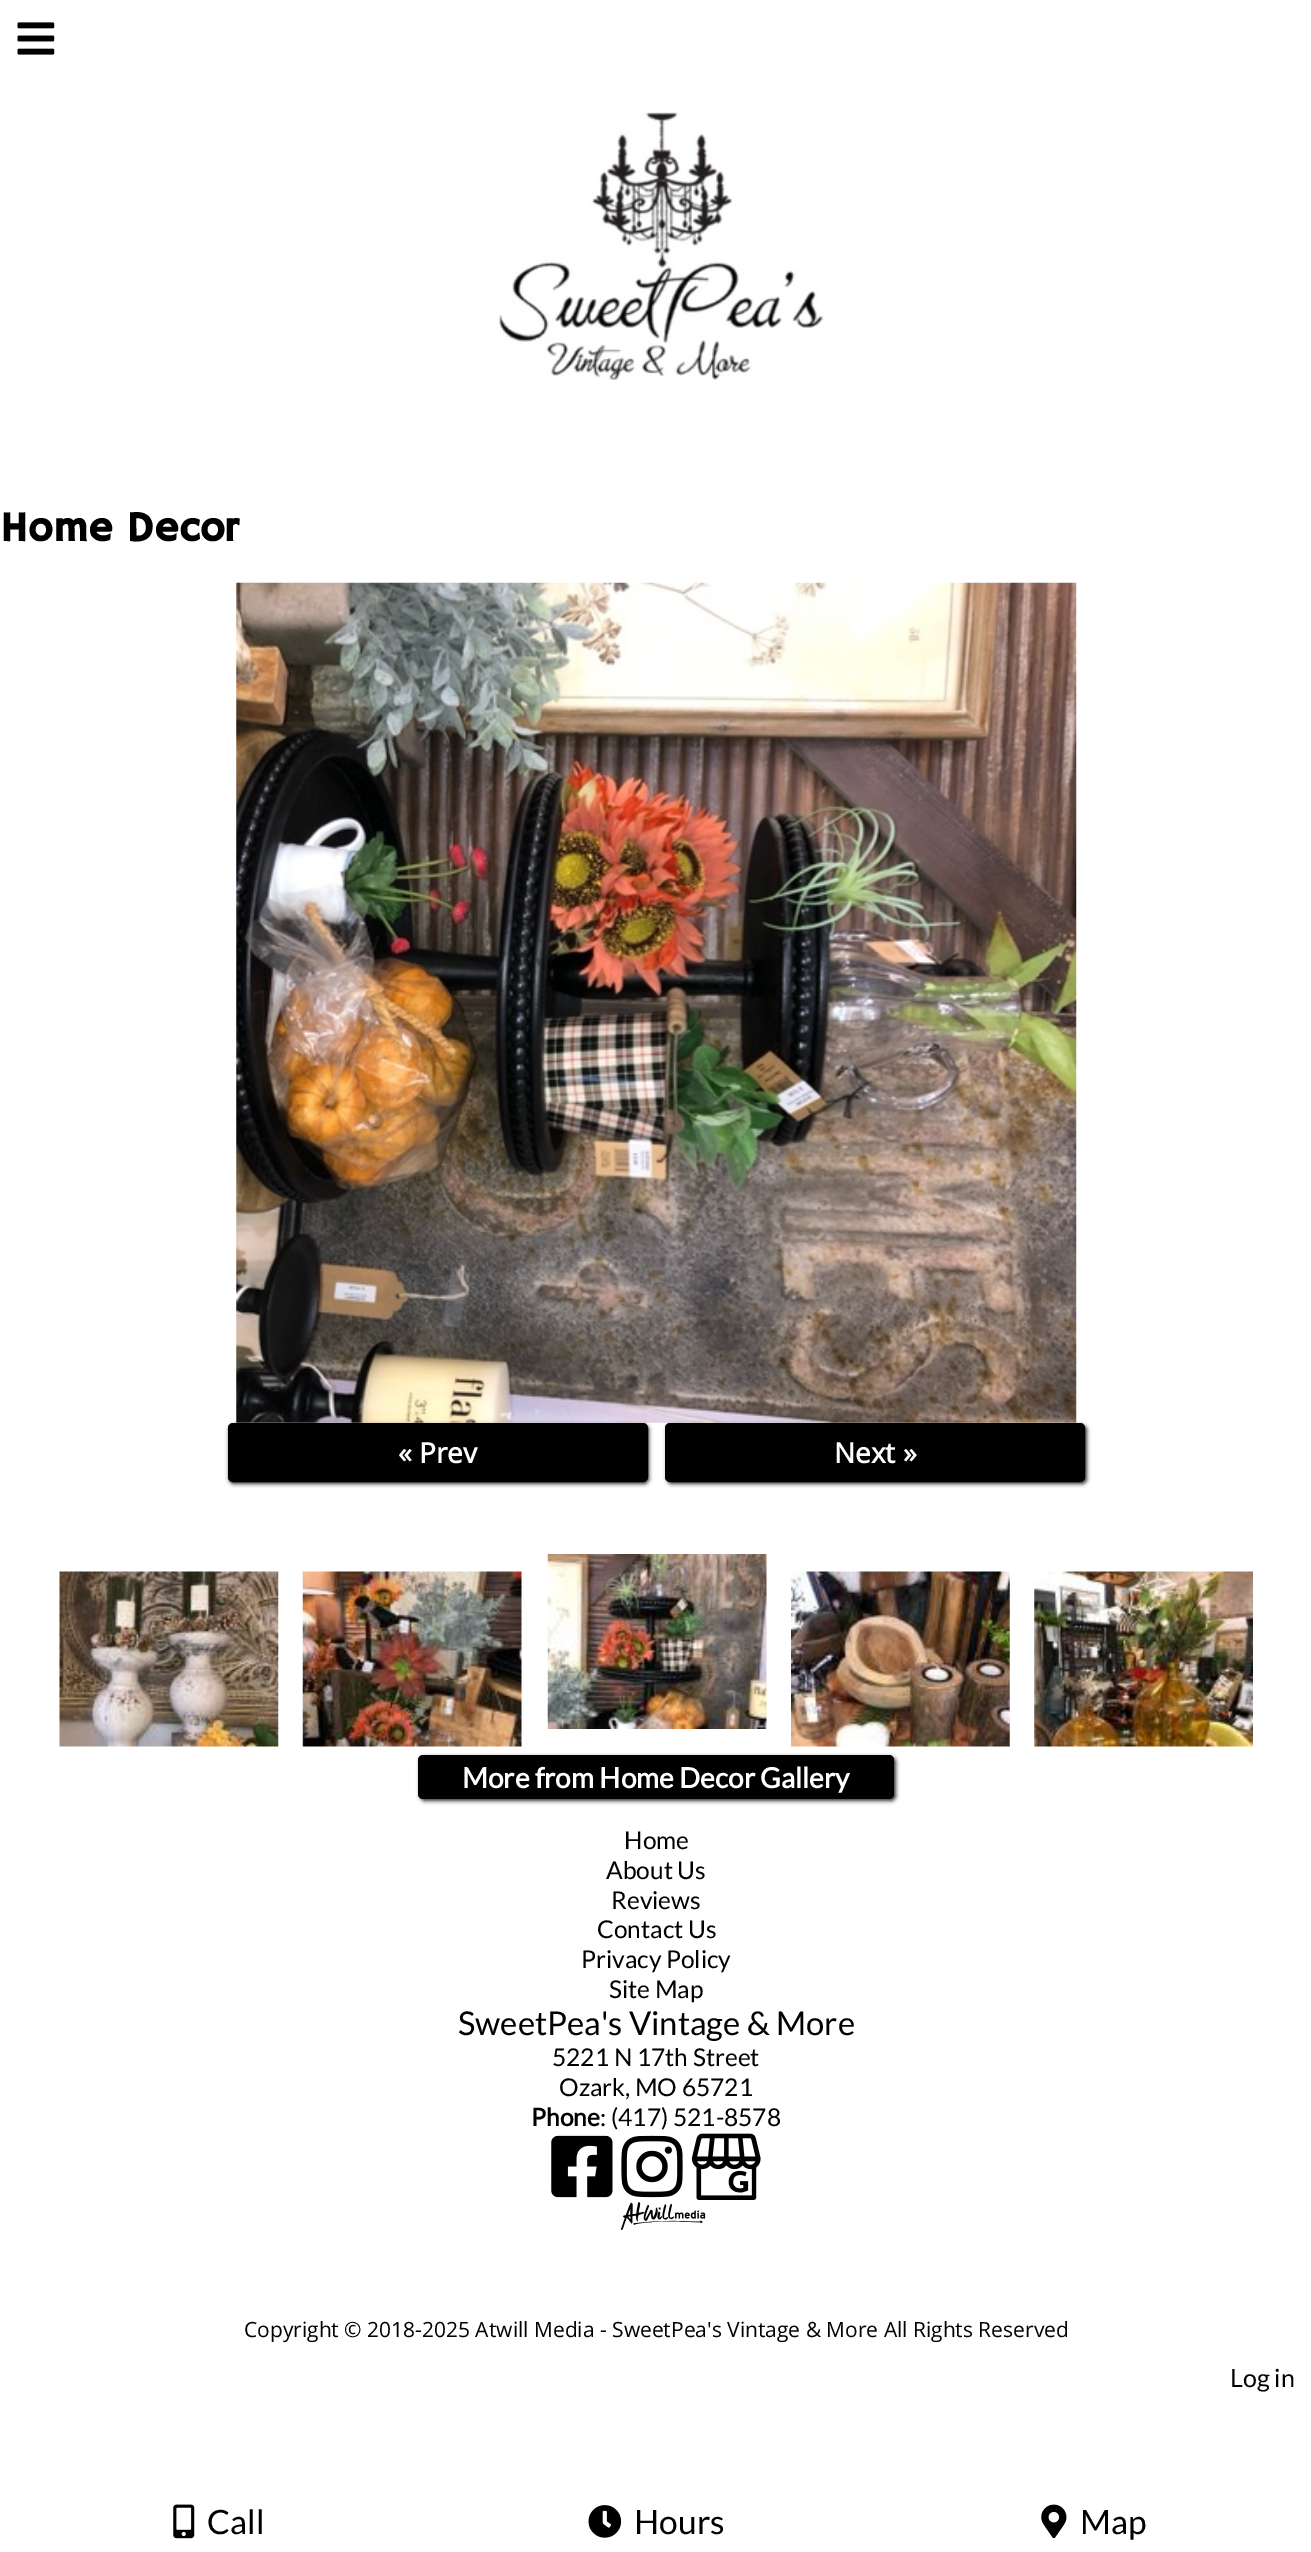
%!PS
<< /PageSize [1311 2552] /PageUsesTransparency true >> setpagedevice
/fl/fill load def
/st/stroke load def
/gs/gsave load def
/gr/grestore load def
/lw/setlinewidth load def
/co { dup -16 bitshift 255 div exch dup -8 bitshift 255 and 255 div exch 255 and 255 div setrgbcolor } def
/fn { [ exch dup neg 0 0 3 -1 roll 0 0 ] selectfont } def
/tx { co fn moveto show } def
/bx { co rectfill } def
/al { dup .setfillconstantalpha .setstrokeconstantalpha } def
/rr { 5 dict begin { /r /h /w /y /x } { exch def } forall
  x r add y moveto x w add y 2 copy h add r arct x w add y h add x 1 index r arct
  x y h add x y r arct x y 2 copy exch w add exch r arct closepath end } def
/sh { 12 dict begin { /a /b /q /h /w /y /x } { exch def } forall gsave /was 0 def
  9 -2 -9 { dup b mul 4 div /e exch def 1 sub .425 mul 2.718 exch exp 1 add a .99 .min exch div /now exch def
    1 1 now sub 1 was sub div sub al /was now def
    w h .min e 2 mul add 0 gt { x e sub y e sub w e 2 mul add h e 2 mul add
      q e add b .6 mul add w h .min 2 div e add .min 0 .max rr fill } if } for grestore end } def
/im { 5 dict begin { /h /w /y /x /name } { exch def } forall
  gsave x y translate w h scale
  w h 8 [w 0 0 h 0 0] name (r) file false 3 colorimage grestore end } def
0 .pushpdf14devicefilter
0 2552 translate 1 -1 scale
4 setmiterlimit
0 0 1311 2552 16#FFFFFF bx
(media/1.raw) 17 22 38 33 im
(media/2.raw) 499 112 325 268 im
(media/3.raw) 236 582 841 841 im
16#333333 co
229 1425 420 59 5 2 1 sh
16#000000 co
229 1424 418 57 4 rr gs fl gr
2 lw
st
16#333333 co
667 1425 420 59 5 2 1 sh
16#000000 co
666 1424 418 57 4 rr gs fl gr
st
(media/4.raw) 59 1571 220 176 im
(media/5.raw) 302 1571 220 176 im
(media/6.raw) 547 1554 220 175 im
(media/7.raw) 791 1571 219 176 im
(media/8.raw) 1034 1571 219 176 im
16#333333 co
420 1757 476 44 5 2 1 sh
16#000000 co
418 1755 476 44 5 rr fl
(media/9.raw) 551 2135 62 63 im
(media/10.raw) 621 2135 62 63 im
(media/11.raw) 691 2133 70 67 im
(media/12.raw) 620 2202 86 28 im
(media/13.raw) 173 2504 22 35 im
(media/14.raw) 588 2505 34 33 im
(media/15.raw) 1041 2504 26 35 im
(Home Decor) 0 541 /HammersmithOne-Bold 42 16#000000 tx
(« Prev) 398 1463 /OpenSans-Bold 28 16#FFFFFF tx
(Next ») 834 1463 /OpenSans-Bold 28 16#FFFFFF tx
(More from Home Decor Gallery) 462 1788 /Lato-Bold 28 16#FFFFFF tx
(Home) 624 1849 /Lato-Regular 24.5 16#000000 tx
(About Us) 606 1879 /Lato-Regular 24.5 16#000000 tx
(Reviews) 611 1909 /Lato-Regular 24.5 16#000000 tx
(Contact Us) 597 1938 /Lato-Regular 24.5 16#000000 tx
(Privacy Policy) 581 1968 /Lato-Regular 24.5 16#000000 tx
(Site Map) 609 1998 /Lato-Regular 24.5 16#000000 tx
(SweetPea's Vintage & More) 458 2035 /Lato-Regular 32.75 16#000000 tx
(5221 N 17th Street) 552 2066 /Lato-Regular 24.5 16#000000 tx
(Ozark, MO 65721) 559 2096 /Lato-Regular 24.5 16#000000 tx
(Phone) 531 2126 /Lato-Bold 24.5 16#000000 tx
(: \(417\) 521-8578) 600 2126 /Lato-Regular 24.5 16#000000 tx
(Copyright © 2018-2025 Atwill Media - SweetPea's Vintage & More All Rights Reserved) 244 2337 /OpenSans-Regular 21 16#000000 tx
(Log in) 1230 2387 /Lato-Regular 25 16#000000 tx
(Call) 207 2534 /Lato-Regular 33.5 16#000000 tx
(Hours) 634 2534 /Lato-Regular 33.5 16#000000 tx
(Map) 1080 2534 /Lato-Regular 33.5 16#000000 tx
.poppdf14devicefilter showpage
